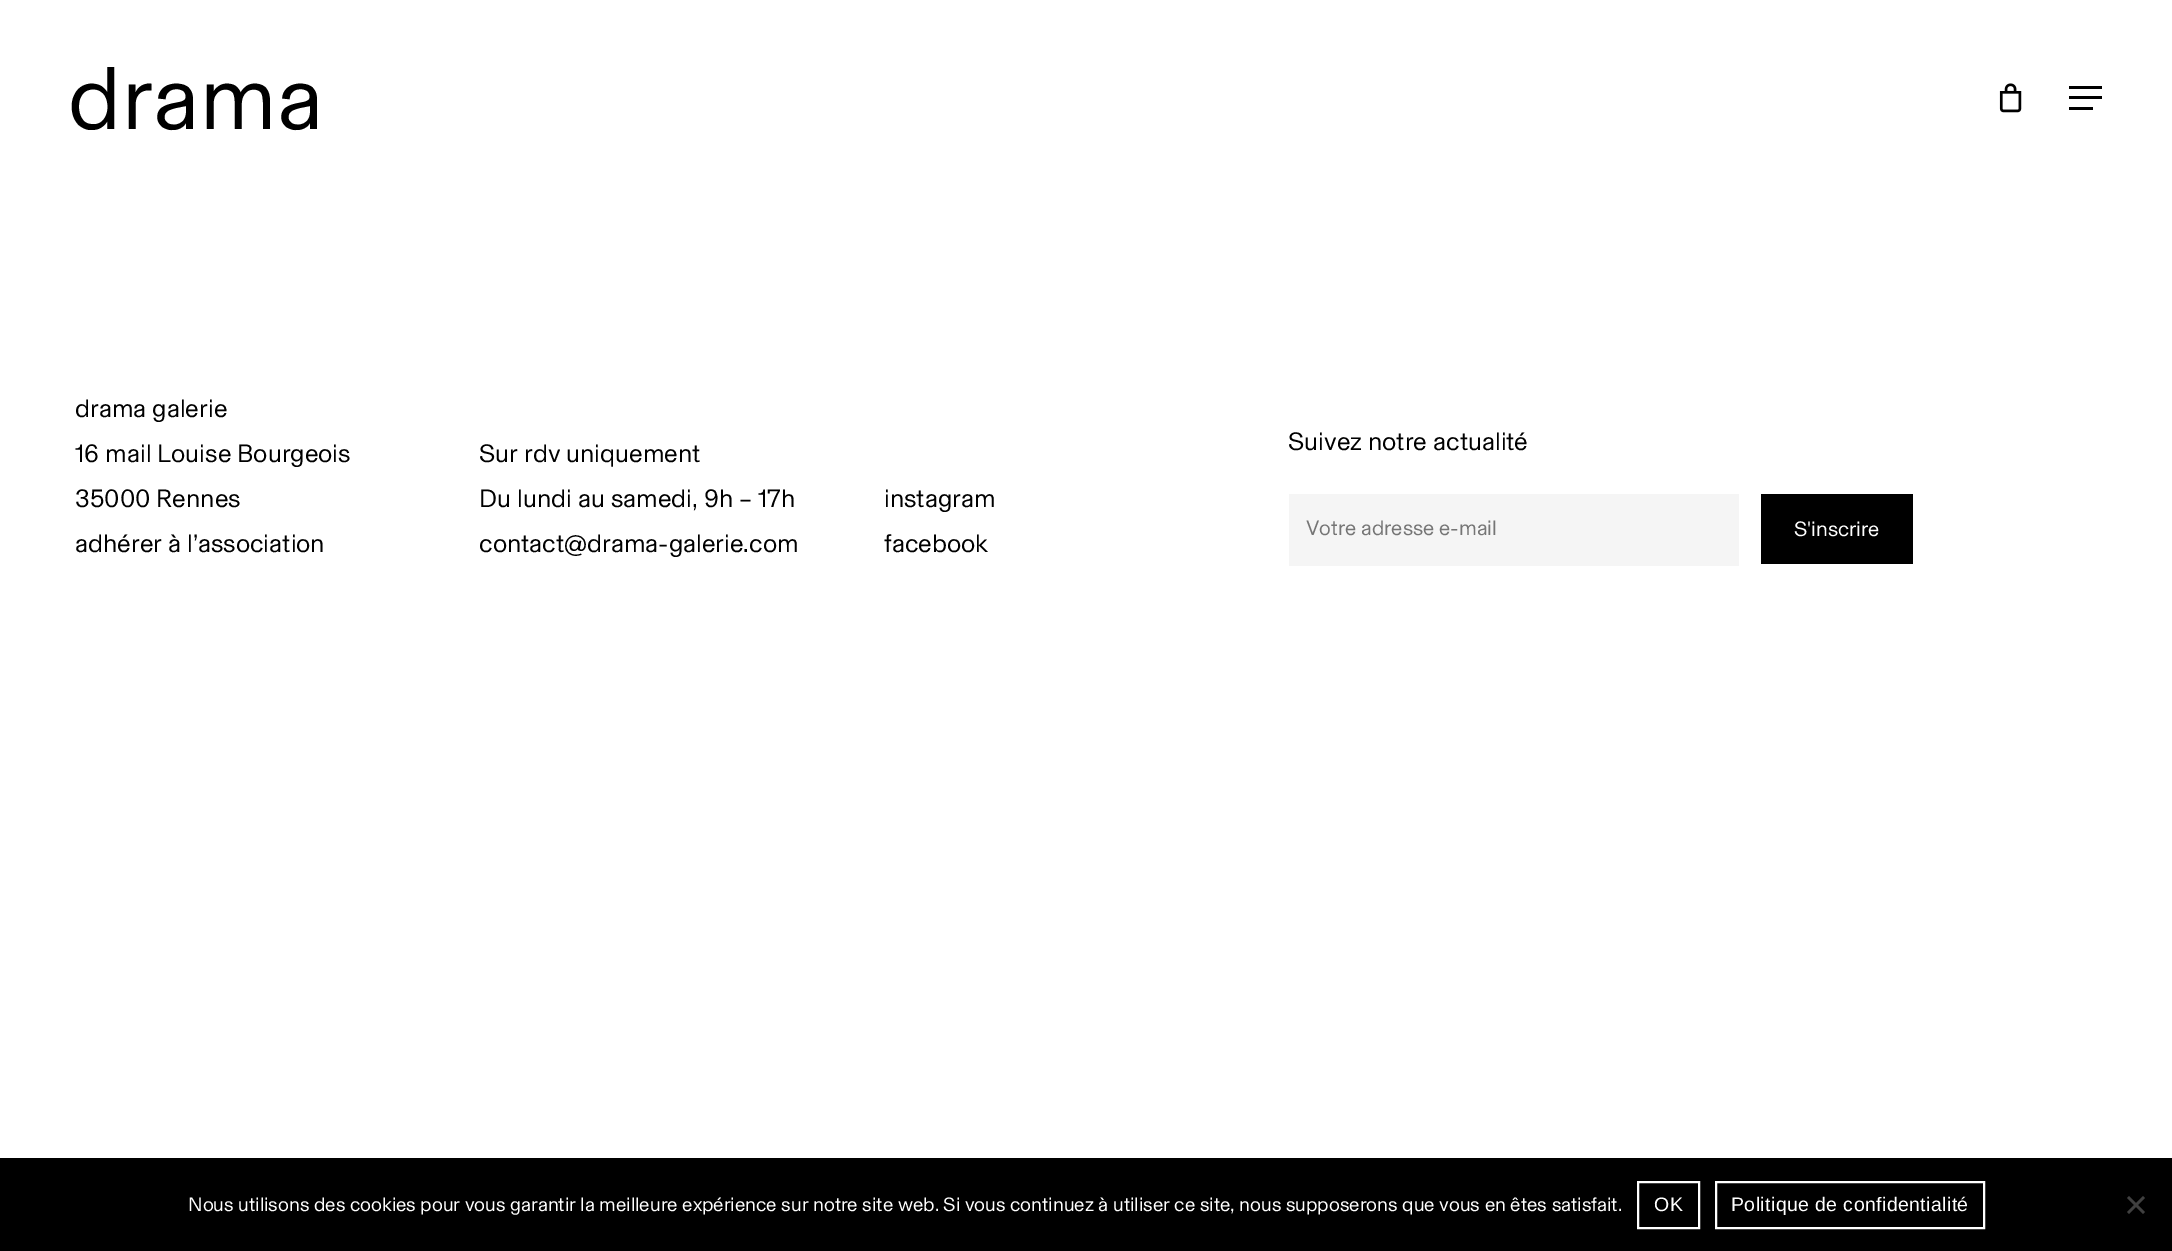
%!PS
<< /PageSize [2172 1251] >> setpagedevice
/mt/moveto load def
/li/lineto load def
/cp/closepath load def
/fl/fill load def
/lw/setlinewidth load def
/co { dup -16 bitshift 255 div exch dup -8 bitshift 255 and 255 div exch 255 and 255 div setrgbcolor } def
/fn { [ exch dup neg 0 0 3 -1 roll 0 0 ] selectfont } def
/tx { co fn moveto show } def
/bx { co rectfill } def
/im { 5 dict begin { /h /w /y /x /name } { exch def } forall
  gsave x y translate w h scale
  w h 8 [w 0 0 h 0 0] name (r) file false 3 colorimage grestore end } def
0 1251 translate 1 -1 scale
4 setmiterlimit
0 0 2172 1251 16#FFFFFF bx
(media/1.raw) 1999 83 23 30 im
2069 86 33 3 16#000000 bx
2069 107 24 3 16#000000 bx
2069 96 33 3 16#000000 bx
1289 494 450 72 16#F5F5F5 bx
1761 494 152 70 16#000000 bx
0 1158 2172 93 16#000000 bx
16#FFFFFF co
2 lw
1638 1182 61 46 rectstroke
1716 1182 268 46 rectstroke
16#404040 co
2143 1196 mt 2145 1198 li 2129 1214 li 2127 1212 li cp fl
2127 1198 mt 2129 1196 li 2145 1212 li 2143 1214 li cp fl
/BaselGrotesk-Regular 90 fn
16#000000 co
68 129 mt .75 0 (drama) ashow
(drama galerie) 75 417 /BaselGrotesk-Regular 25.5 16#000000 tx
(16 mail Louise Bourgeois) 75 462 /BaselGrotesk-Regular 25.5 16#000000 tx
(35000 Rennes) 75 507 /BaselGrotesk-Regular 25.5 16#000000 tx
(adhérer à l’association) 75 552 /BaselGrotesk-Regular 25.5 16#000000 tx
(Sur rdv uniquement) 479 462 /BaselGrotesk-Regular 25.5 16#000000 tx
(Du lundi au samedi, 9h – 17h) 479 507 /BaselGrotesk-Regular 25.5 16#000000 tx
(contact@drama-galerie.com) 479 552 /BaselGrotesk-Regular 25.5 16#000000 tx
(instagram) 884 507 /BaselGrotesk-Regular 25.5 16#000000 tx
(facebook) 884 552 /BaselGrotesk-Regular 25.5 16#000000 tx
(Suivez notre actualité) 1288 450 /BaselGrotesk-Regular 25.5 16#000000 tx
(Votre adresse e-mail) 1306 535 /BaselGrotesk-Regular 21 16#757575 tx
(S'inscrire) 1794 536 /BaselGrotesk-Regular 21 16#FFFFFF tx
(Nous utilisons des cookies pour vous garantir la meilleure expérience sur notre site web. Si vous continuez à utiliser ce site, nous supposerons que vous en êtes satisfait.) 188 1211 /BaselGrotesk-Regular 19.5 16#FFFFFF tx
/LiberationSans-Regular 19.5 fn
1654 1211 mt .4 0 (OK) ashow
1731 1211 mt .4 0 (Politique de confidentialité) ashow
showpage
